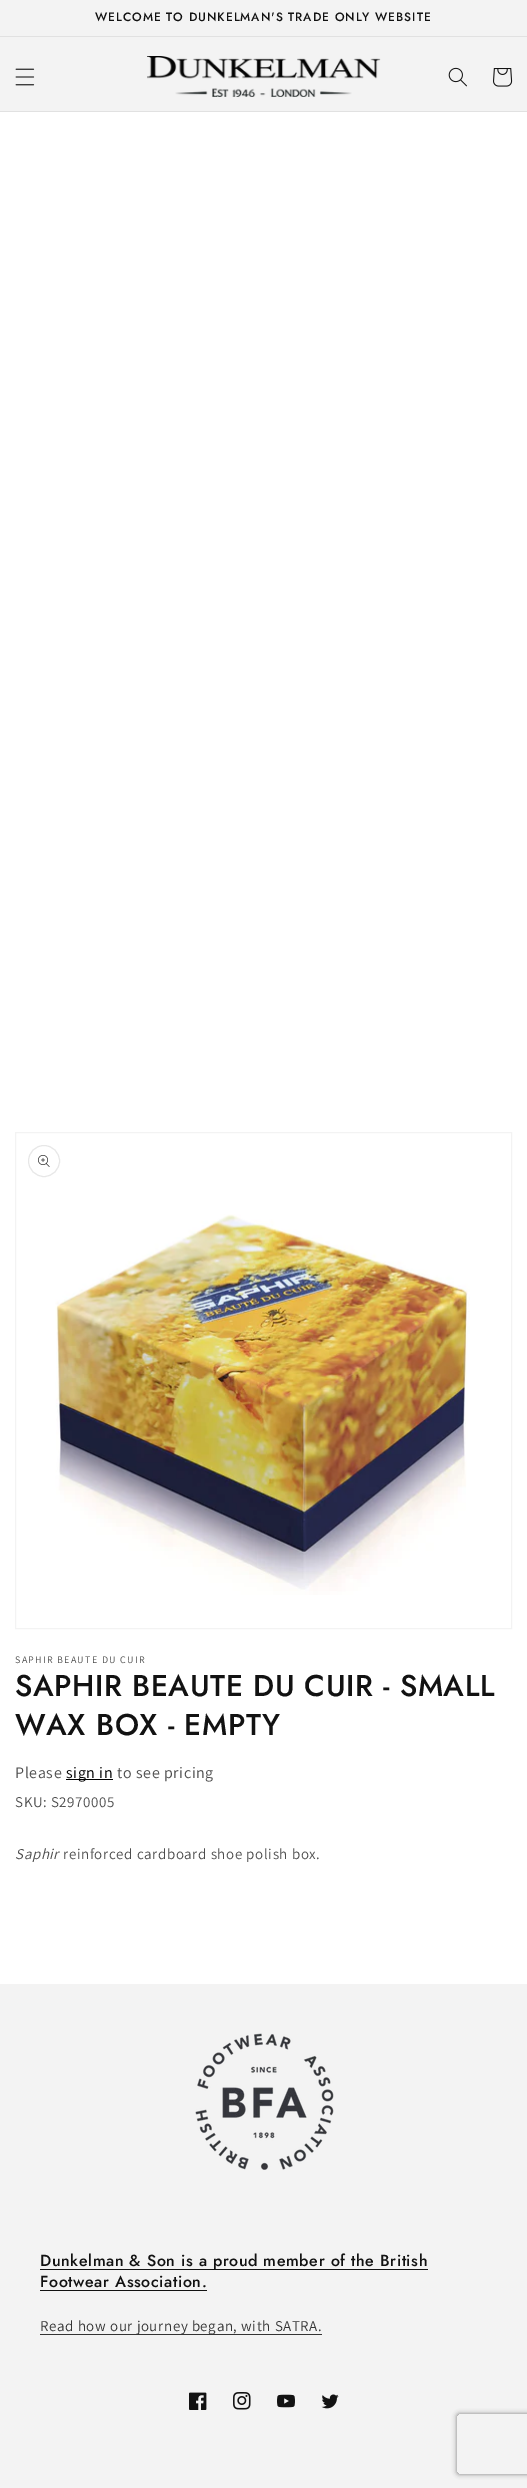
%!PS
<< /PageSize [527 2488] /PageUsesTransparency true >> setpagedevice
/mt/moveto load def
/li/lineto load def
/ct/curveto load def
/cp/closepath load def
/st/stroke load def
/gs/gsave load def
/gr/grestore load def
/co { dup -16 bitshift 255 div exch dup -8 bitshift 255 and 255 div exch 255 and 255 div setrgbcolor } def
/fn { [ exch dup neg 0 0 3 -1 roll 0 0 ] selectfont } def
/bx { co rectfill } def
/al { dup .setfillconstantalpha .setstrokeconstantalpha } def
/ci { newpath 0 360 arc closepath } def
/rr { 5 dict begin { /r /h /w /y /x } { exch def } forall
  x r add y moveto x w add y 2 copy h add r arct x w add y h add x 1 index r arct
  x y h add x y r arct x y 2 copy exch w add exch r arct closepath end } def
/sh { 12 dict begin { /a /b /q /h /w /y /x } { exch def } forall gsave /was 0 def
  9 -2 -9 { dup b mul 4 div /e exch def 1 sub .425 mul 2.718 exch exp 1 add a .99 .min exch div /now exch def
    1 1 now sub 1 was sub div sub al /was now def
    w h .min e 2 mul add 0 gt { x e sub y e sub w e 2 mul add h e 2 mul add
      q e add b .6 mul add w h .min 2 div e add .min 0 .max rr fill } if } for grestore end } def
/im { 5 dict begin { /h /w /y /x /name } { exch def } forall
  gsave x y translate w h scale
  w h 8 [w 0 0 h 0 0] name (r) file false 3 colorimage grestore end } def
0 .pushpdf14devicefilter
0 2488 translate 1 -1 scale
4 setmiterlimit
0 0 527 2488 16#FFFFFF bx
0 0 527 36 16#F3F3F3 bx
0 36 527 1 16#E1E1E1 bx
0 37 527 74 16#F3F3F3 bx
0 111 527 1 16#E1E1E1 bx
(media/1.raw) 15 68 20 18 im
(media/2.raw) 147 56 234 41 im
(media/3.raw) 448 67 19 20 im
(media/4.raw) 493 68 20 19 im
16#F3F3F3 co
15.5 1132.5 496 496 rectstroke
16#E7E7E7 co
44 1161 15.5 ci st
(media/5.raw) 38 1155 12 12 im
(media/6.raw) 55 1214 415 381 im
66 1779 47 1 16#000000 bx
0 1984 527 504 16#F3F3F3 bx
(media/7.raw) 195 2033 139 137 im
40 2269 388 1 16#121212 bx
40 2290 167 1 16#121212 bx
40 2334 282 1 16#343434 bx
(media/8.raw) 189 2392 18 18 im
(media/9.raw) 233 2392 18 18 im
(media/10.raw) 277 2394 18 14 im
(media/11.raw) 321 2394 18 15 im
gs
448 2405 mt 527 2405 li 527 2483 li 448 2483 li cp 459 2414 mt 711 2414 li 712 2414 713 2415 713 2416 ct 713 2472 li 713 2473 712 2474 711 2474 ct 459 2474 li 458 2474 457 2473 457 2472 ct 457 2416 li 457 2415 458 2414 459 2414 ct cp eoclip newpath
16#808080 co
457 2414 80 60 2 2.5 1 sh
gr
/Jost-Medium 12 fn
16#121212 co
95 21 mt 1 0 (WELCOME TO DUNKELMAN'S TRADE ONLY WEBSITE) ashow
/Assistant-Regular 10 fn
16#4D4D4D co
15 1663 mt 1.3 0 (SAPHIR BEAUTE DU CUIR) ashow
/Jost-Medium 30 fn
16#121212 co
15 1696 mt .6 0 (SAPHIR BEAUTE DU CUIR - SMALL) ashow
15 1735 mt .6 0 (WAX BOX - EMPTY) ashow
/Assistant-Regular 16 fn
16#4D4D4D co
15 1778 mt .6 0 (Please) ashow
16#000000 co
66 1778 mt .6 0 (sign in) ashow
16#4D4D4D co
117 1778 mt .6 0 (to see pricing) ashow
/Assistant-Regular 15 fn
15 1807 mt .6 0 (SKU: S2970005) ashow
/Assistant-Italic 15 fn
15 1859 mt .6 0 (Saphir) ashow
/Assistant-Regular 15 fn
63 1859 mt .6 0 (reinforced cardboard shoe polish box.) ashow
/Jost-Medium 16 fn
16#121212 co
40 2266 mt .6 0 (Dunkelman & Son is a proud member of the British) ashow
40 2287 mt .6 0 (Footwear Association.) ashow
/Assistant-Regular 15 fn
16#343434 co
40 2331 mt .6 0 (Read how our journey began, with SATRA.) ashow
.poppdf14devicefilter showpage
